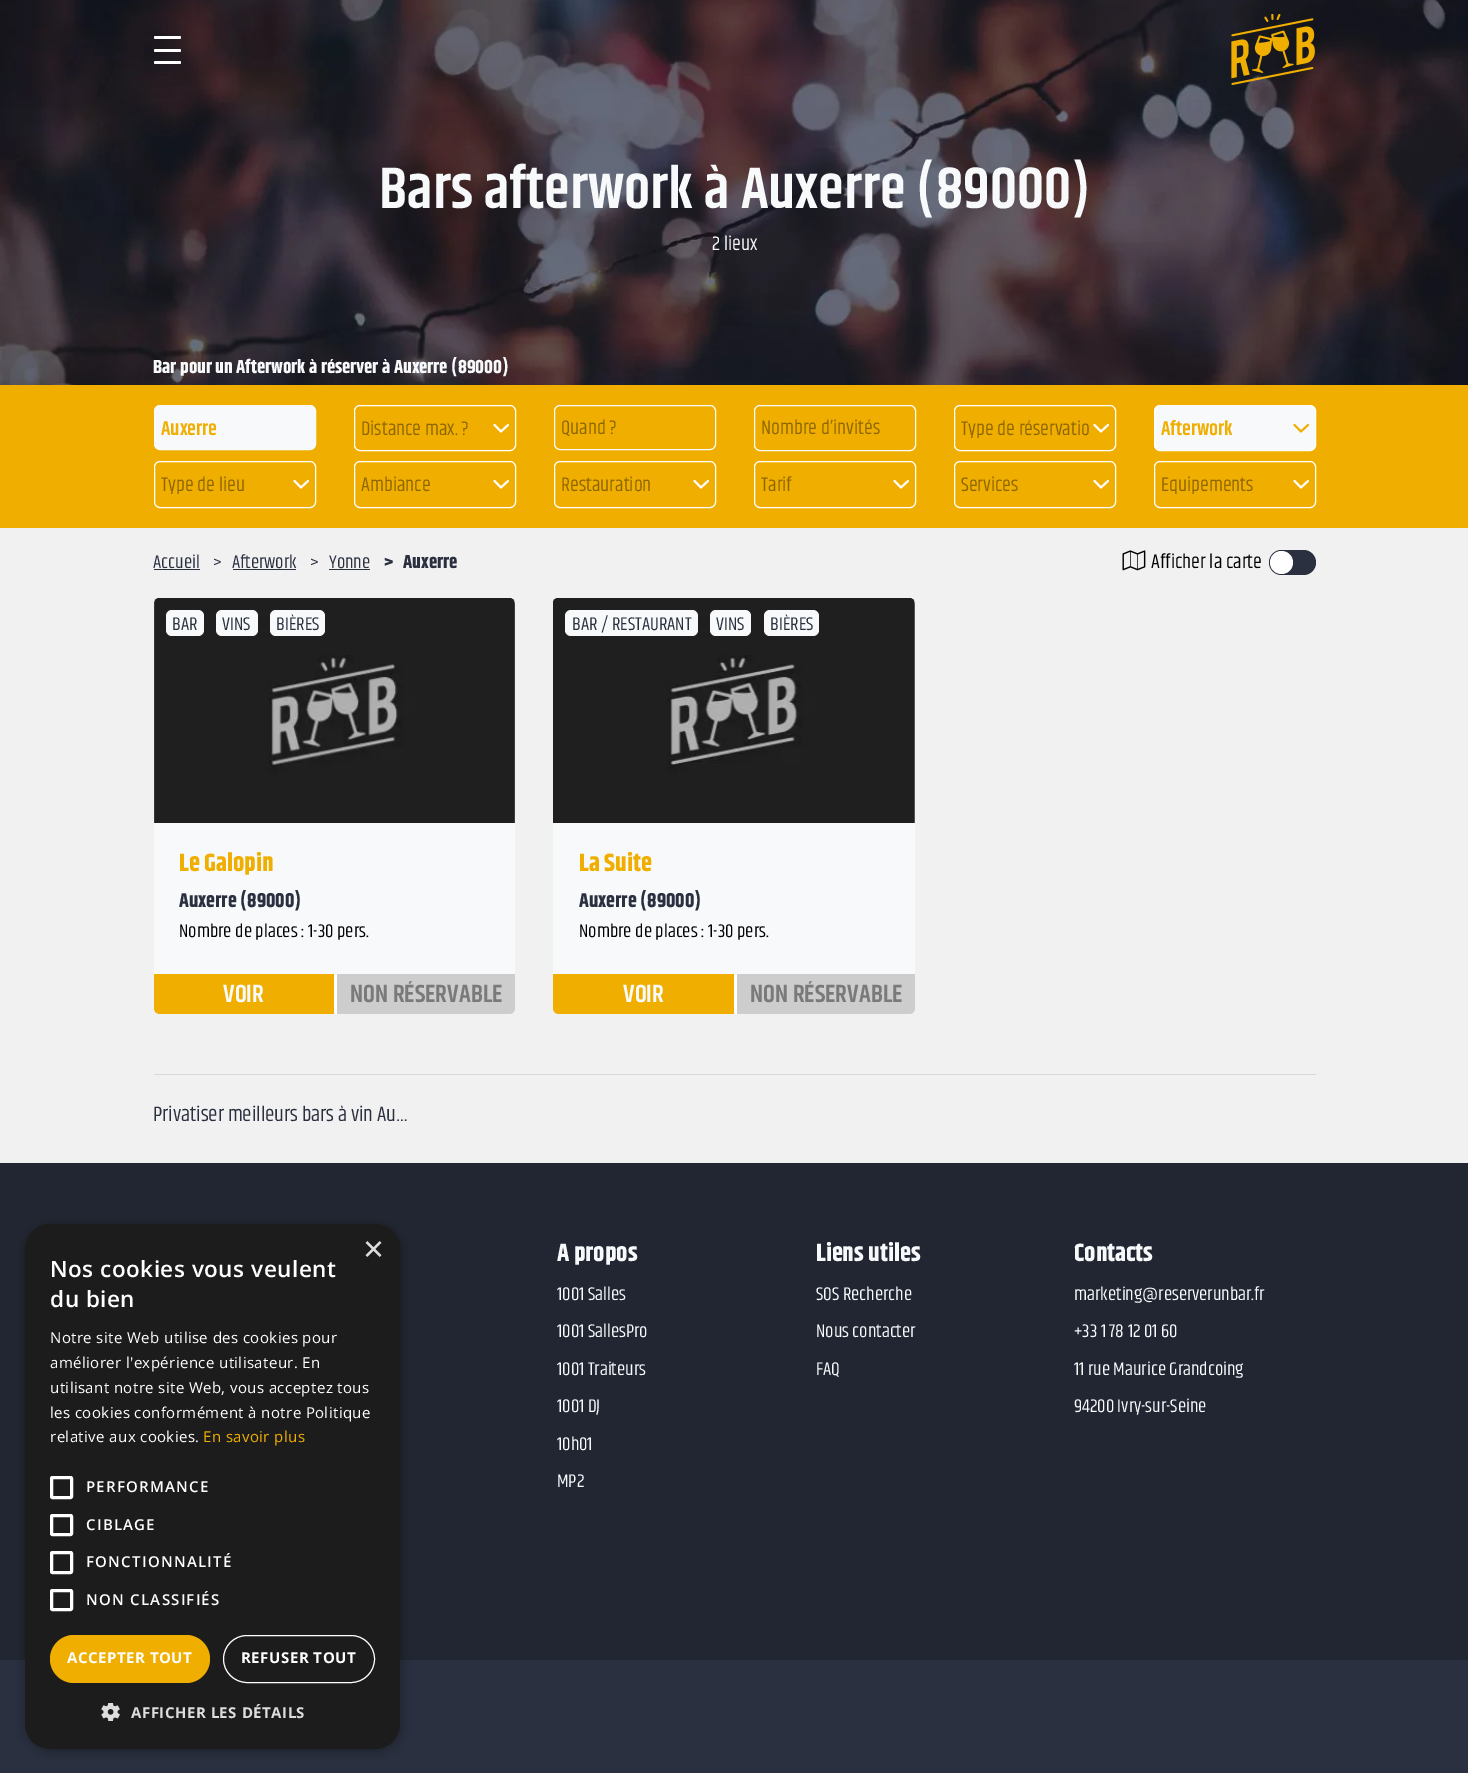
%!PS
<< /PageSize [1468 1773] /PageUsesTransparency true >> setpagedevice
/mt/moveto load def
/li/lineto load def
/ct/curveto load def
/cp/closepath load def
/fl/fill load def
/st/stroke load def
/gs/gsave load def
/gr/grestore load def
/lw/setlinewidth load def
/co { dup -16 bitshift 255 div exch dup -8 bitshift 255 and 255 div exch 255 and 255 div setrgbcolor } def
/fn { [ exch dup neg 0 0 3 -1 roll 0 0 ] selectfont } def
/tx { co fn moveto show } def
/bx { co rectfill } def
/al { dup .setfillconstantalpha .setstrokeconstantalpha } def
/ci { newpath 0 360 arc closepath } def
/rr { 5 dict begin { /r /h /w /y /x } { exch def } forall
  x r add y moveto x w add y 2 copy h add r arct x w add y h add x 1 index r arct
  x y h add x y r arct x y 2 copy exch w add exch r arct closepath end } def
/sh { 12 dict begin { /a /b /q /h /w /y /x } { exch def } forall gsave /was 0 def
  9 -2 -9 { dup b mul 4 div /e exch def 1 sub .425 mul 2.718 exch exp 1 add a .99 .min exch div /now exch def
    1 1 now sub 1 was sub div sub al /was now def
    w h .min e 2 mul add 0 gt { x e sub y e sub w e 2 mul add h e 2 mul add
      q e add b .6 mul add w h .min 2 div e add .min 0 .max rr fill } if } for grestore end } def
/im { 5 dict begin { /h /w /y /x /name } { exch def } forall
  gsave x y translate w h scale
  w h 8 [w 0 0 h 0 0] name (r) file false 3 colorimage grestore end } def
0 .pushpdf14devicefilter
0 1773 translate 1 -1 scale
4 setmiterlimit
0 0 1468 1773 16#2A3040 bx
(media/1.raw) 0 0 1468 385 im
16#FFFFFF co
154 36 27 3 1.5 rr fl
154 49 27 3 1.5 rr fl
154 61 27 3 1.5 rr fl
(media/2.raw) 1231 14 84 71 im
0 528 1468 635 16#F1F1F1 bx
0 385 1468 143 16#F0AE00 bx
16#F7F9FB co
154.5 405.5 161 44 5.5 rr gs fl gr
st
16#FFFFFF co
354.5 405.5 161 45 5.5 rr st
1.9 lw
1 setlinecap
1 setlinejoin
494.5 425 mt 501 431.5 li 508 425 li st
16#F7F9FB co
1 lw
0 setlinecap
0 setlinejoin
554.5 405.5 161 44 5.5 rr st
754.5 405.5 161 45 5.5 rr st
16#FFFFFF co
954.5 405.5 161 45 5.5 rr st
1.9 lw
1 setlinecap
1 setlinejoin
1094.5 425 mt 1101 431.5 li 1108 425 li st
16#F7F9FB co
1154.5 405.5 161 45 5.5 rr gs fl gr
16#FFFFFF co
1 lw
0 setlinecap
0 setlinejoin
st
16#F0AE00 co
1.9 lw
1 setlinecap
1 setlinejoin
1294.5 425 mt 1301 431.5 li 1308 425 li st
16#FFFFFF co
1 lw
0 setlinecap
0 setlinejoin
154.5 461.5 161 46 5.5 rr st
1.9 lw
1 setlinecap
1 setlinejoin
294.5 481 mt 301 487.5 li 308 481 li st
1 lw
0 setlinecap
0 setlinejoin
354.5 461.5 161 46 5.5 rr st
1.9 lw
1 setlinecap
1 setlinejoin
494.5 481 mt 501 487.5 li 508 481 li st
1 lw
0 setlinecap
0 setlinejoin
554.5 461.5 161 46 5.5 rr st
1.9 lw
1 setlinecap
1 setlinejoin
694.5 481 mt 701 487.5 li 708 481 li st
1 lw
0 setlinecap
0 setlinejoin
754.5 461.5 161 46 5.5 rr st
1.9 lw
1 setlinecap
1 setlinejoin
894.5 481 mt 901 487.5 li 908 481 li st
1 lw
0 setlinecap
0 setlinejoin
954.5 461.5 161 46 5.5 rr st
1.9 lw
1 setlinecap
1 setlinejoin
1094.5 481 mt 1101 487.5 li 1108 481 li st
1 lw
0 setlinecap
0 setlinejoin
1154.5 461.5 161 46 5.5 rr st
1.9 lw
1 setlinecap
1 setlinejoin
1294.5 481 mt 1301 487.5 li 1308 481 li st
154 569 46 1 16#2A3040 bx
233 569 63 1 16#2A3040 bx
329 569 41 1 16#2A3040 bx
(media/3.raw) 1122 550 24 21 im
1269 550 47 25 12.5 rr fl
16#FFFFFF co
1281.5 562.5 11.5 ci fl
16#EAEAEA co
160 598 mt 509 598 li 512.5 598 515 600.5 515 604 ct 515 823 li 154 823 li 154 604 li 154 600.5 156.5 598 160 598 ct cp fl
(media/4.raw) 154 598 361 225 im
16#F7F9FB co
166 610 38 26 6 rr fl
216 610 42 26 6 rr fl
270 610 55 26 6 rr fl
154 823 361 151 16#F7F9FB bx
16#F0AE00 co
154 974 mt 334 974 li 334 1014 li 160 1014 li 156.5 1014 154 1011.5 154 1008 ct cp fl
16#CDCDCD co
334 974 mt 515 974 li 515 1008 li 515 1011.5 512.5 1014 509 1014 ct 334 1014 li cp fl
334 974 3 40 16#FFFFFF bx
16#EAEAEA co
559 598 mt 909 598 li 912.5 598 915 600.5 915 604 ct 915 823 li 553 823 li 553 604 li 553 600.5 555.5 598 559 598 ct cp fl
(media/5.raw) 553 598 362 225 im
16#F7F9FB co
565 610 133 26 6 rr fl
710 610 41 26 6 rr fl
764 610 55 26 6 rr fl
553 823 362 151 16#F7F9FB bx
16#F0AE00 co
553 974 mt 734 974 li 734 1014 li 559 1014 li 555.5 1014 553 1011.5 553 1008 ct cp fl
16#CDCDCD co
734 974 mt 915 974 li 915 1008 li 915 1011.5 912.5 1014 909 1014 ct 734 1014 li cp fl
734 974 3 40 16#FFFFFF bx
154 1074 1162 1 16#D7D8D8 bx
0 1163 1468 497 16#212632 bx
16#000000 co
26 1226 375 525 25 5 .35 sh
16#1C1C1C co
25 1224 375 525 25 rr fl
16#FFFFFF co
3 lw
0 setlinecap
0 setlinejoin
51.5 1477.5 20 20 1 rr st
51.5 1515.5 20 19 1 rr st
51.5 1552.5 20 20 1 rr st
51.5 1590.5 20 19 1 rr st
16#F0AE00 co
50 1635 160 48 24 rr fl
16#FFFFFF co
1 lw
223.5 1635.5 151 47 23.5 rr st
(media/6.raw) 101 1703 19 18 im
(Bars afterwork à Auxerre \(89000\)) 379 208 /Khand-SemiBold 58.75 16#F7F9FB tx
(2 lieux) 712 250 /Khand-Regular 20 16#F7F9FB tx
(Bar pour un Afterwork à réserver à Auxerre \(89000\)) 153 373 /Khand-Bold 18.75 16#F7F9FB tx
(Auxerre) 161 435 /Khand-SemiBold 20 16#F0AE00 tx
(Distance max. ?) 361 435 /Khand-Regular 20 16#8C6600 tx
(Quand ?) 561 434 /Khand-Regular 20 16#8C6600 tx
(Nombre d’invités) 761 434 /Khand-Regular 20 16#8C6600 tx
(Type de réservatio) 961 435 /Khand-Regular 20 16#8C6600 tx
(Afterwork) 1161 435 /Khand-SemiBold 20 16#F0AE00 tx
(Type de lieu) 161 491 /Khand-Regular 20 16#8C6600 tx
(Ambiance) 361 491 /Khand-Regular 20 16#8C6600 tx
(Restauration) 561 491 /Khand-Regular 20 16#8C6600 tx
(Tarif) 761 491 /Khand-Regular 20 16#8C6600 tx
(Services) 961 491 /Khand-Regular 20 16#8C6600 tx
(Equipements) 1161 491 /Khand-Regular 20 16#8C6600 tx
(Accueil) 153 568 /Khand-Regular 18.75 16#2A3040 tx
(>) 213 568 /Khand-Regular 18.75 16#2A3040 tx
(Afterwork) 232 568 /Khand-Regular 18.75 16#2A3040 tx
(>) 310 568 /Khand-Regular 18.75 16#2A3040 tx
(Yonne) 329 568 /Khand-Regular 18.75 16#2A3040 tx
(>) 384 568 /Khand-Bold 18.75 16#2A3040 tx
(Auxerre) 403 568 /Khand-Bold 18.75 16#2A3040 tx
(Afficher la carte) 1151 568 /Khand-Regular 20 16#000000 tx
(BAR) 172 630 /Khand-Regular 18.75 16#2A3040 tx
(VINS) 222 630 /Khand-Regular 18.75 16#2A3040 tx
(BIÈRES) 276 630 /Khand-Regular 18.75 16#2A3040 tx
(Le Galopin) 179 871 /Khand-Bold 25 16#F0AE00 tx
(Auxerre \(89000\)) 179 907 /Khand-Bold 20 16#2A3040 tx
(Nombre de places : 1-30 pers.) 179 937 /Khand-Regular 18.75 16#000000 tx
(VOIR) 223 1002 /Khand-SemiBold 25 16#F7F9FB tx
(NON RÉSERVABLE) 350 1002 /Khand-SemiBold 25 16#7A7A7A tx
(BAR / RESTAURANT) 572 630 /Khand-Regular 18.75 16#2A3040 tx
(VINS) 716 630 /Khand-Regular 18.75 16#2A3040 tx
(BIÈRES) 770 630 /Khand-Regular 18.75 16#2A3040 tx
(La Suite) 579 871 /Khand-Bold 25 16#F0AE00 tx
(Auxerre \(89000\)) 579 907 /Khand-Bold 20 16#2A3040 tx
(Nombre de places : 1-30 pers.) 579 937 /Khand-Regular 18.75 16#000000 tx
(VOIR) 623 1002 /Khand-SemiBold 25 16#F7F9FB tx
(NON RÉSERVABLE) 750 1002 /Khand-SemiBold 25 16#7A7A7A tx
(Privatiser meilleurs bars à vin Au…) 153 1121 /Khand-Regular 21.25 16#2A3040 tx
(×) 363 1261 /LiberationSans-Regular 36 16#DDDDDD tx
/OpenSans-SemiBold 22.5 fn
16#FFFFFF co
50 1277 mt .5 0 (Nos cookies vous veulent) ashow
50 1307 mt .5 0 (du bien) ashow
/OpenSans-Regular 15 fn
50 1343 mt .4 0 (Notre site Web utilise des cookies pour) ashow
50 1368 mt .4 0 (améliorer l'expérience utilisateur. En) ashow
50 1393 mt .4 0 (utilisant notre site Web, vous acceptez tous) ashow
50 1418 mt .4 0 (les cookies conformément à notre Politique) ashow
50 1442 mt .4 0 (relative aux cookies.) ashow
16#F0AE00 co
203 1442 mt .4 0 (En savoir plus) ashow
/OpenSans-SemiBold 15 fn
16#FFFFFF co
86 1492 mt 1.25 0 (PERFORMANCE) ashow
86 1530 mt 1.25 0 (CIBLAGE) ashow
86 1567 mt 1.25 0 (FONCTIONNALITÉ) ashow
86 1605 mt 1.25 0 (NON CLASSIFIÉS) ashow
/OpenSans-Bold 15 fn
67 1663 mt .5 0 (ACCEPTER TOUT) ashow
241 1663 mt .5 0 (REFUSER TOUT) ashow
16#DDDDDD co
131 1718 mt .5 0 (AFFICHER LES DÉTAILS) ashow
(A propos) 557 1261 /Khand-Bold 25 16#F7F9FB tx
(1001 Salles) 557 1300 /Khand-Regular 18.75 16#F7F9FB tx
(1001 SallesPro) 557 1337 /Khand-Regular 18.75 16#F7F9FB tx
(1001 Traiteurs) 557 1375 /Khand-Regular 18.75 16#F7F9FB tx
(1001 DJ) 557 1412 /Khand-Regular 18.75 16#F7F9FB tx
(10h01) 557 1450 /Khand-Regular 18.75 16#F7F9FB tx
(MP2) 557 1487 /Khand-Regular 18.75 16#F7F9FB tx
(Liens utiles) 816 1261 /Khand-Bold 25 16#F7F9FB tx
(SOS Recherche) 816 1300 /Khand-Regular 18.75 16#F7F9FB tx
(Nous contacter) 816 1337 /Khand-Regular 18.75 16#F7F9FB tx
(FAQ) 816 1375 /Khand-Regular 18.75 16#F7F9FB tx
(Contacts) 1074 1261 /Khand-Bold 25 16#F7F9FB tx
(marketing@reserverunbar.fr) 1074 1300 /Khand-Regular 18.75 16#F7F9FB tx
(+33 1 78 12 01 60) 1074 1337 /Khand-Regular 18.75 16#F7F9FB tx
(11 rue Maurice Grandcoing) 1074 1375 /Khand-Regular 18.75 16#F7F9FB tx
(94200 Ivry-sur-Seine) 1074 1412 /Khand-Regular 18.75 16#F7F9FB tx
.poppdf14devicefilter showpage
